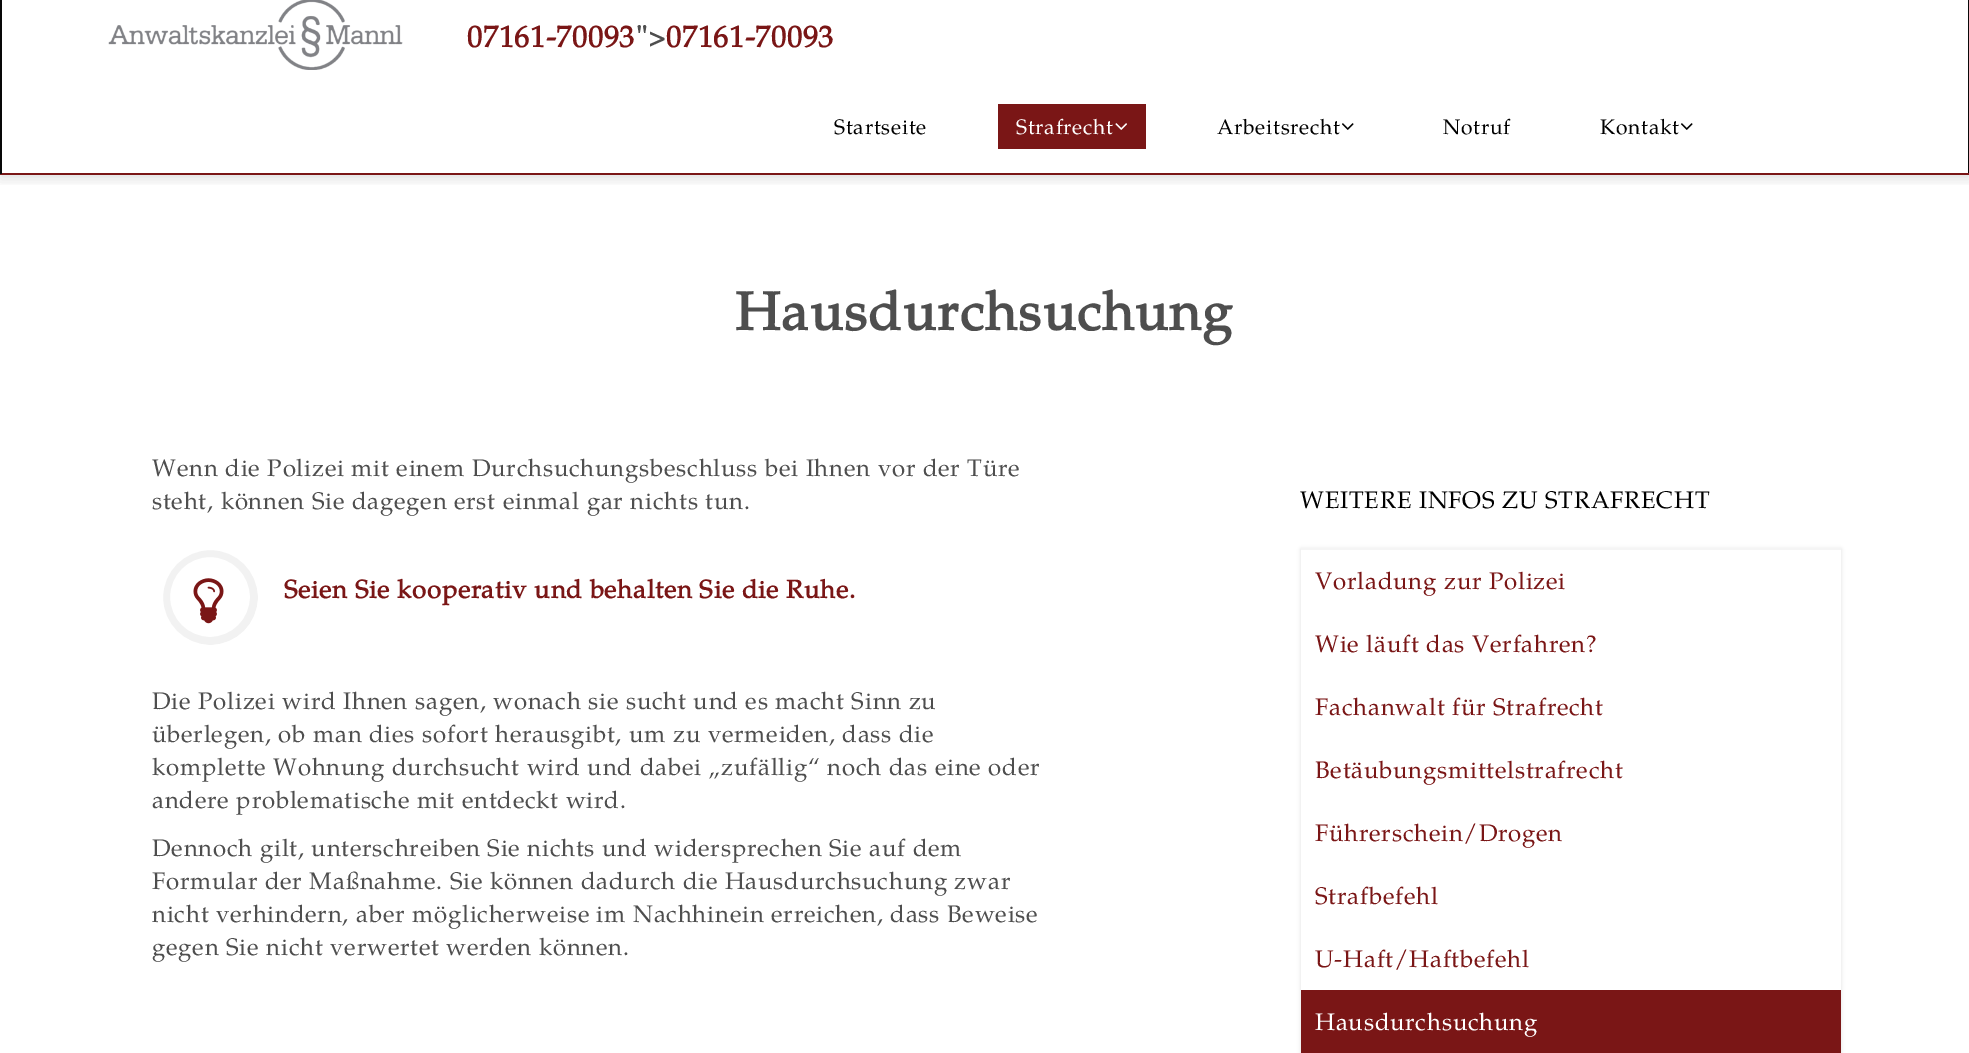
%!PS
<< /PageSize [1969 1053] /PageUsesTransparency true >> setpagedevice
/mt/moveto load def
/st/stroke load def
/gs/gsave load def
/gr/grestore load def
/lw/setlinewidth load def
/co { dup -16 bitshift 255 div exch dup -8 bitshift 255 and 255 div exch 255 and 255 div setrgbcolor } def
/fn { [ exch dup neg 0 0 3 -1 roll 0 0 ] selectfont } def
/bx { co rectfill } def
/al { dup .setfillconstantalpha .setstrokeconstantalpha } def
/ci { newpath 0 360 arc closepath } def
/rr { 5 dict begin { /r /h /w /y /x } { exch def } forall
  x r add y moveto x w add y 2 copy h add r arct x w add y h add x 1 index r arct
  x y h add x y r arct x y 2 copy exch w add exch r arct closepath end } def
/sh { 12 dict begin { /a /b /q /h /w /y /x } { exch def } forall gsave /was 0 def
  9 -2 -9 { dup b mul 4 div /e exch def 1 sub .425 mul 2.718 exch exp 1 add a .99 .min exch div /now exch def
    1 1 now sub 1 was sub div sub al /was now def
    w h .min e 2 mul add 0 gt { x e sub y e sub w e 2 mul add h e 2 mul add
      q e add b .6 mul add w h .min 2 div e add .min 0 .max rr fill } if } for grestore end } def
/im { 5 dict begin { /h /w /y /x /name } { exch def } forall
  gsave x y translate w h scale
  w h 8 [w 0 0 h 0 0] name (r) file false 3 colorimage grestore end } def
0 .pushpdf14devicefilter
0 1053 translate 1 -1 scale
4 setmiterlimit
0 0 1969 1053 16#FFFFFF bx
gs
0 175 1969 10 rectclip
16#000000 co
0 -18 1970 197 0 6 .12 sh
gr
1968 0 1 174 16#080808 bx
0 173 1969 2 16#7A1616 bx
0 0 2 174 16#080808 bx
(media/1.raw) 108 0 295 70 im
998 104 148 45 16#7A1616 bx
(media/2.raw) 1115 123 12 7 im
(media/3.raw) 1342 123 12 7 im
(media/3.raw) 1681 123 12 7 im
16#F2F2F2 co
8 lw
210 597 44 ci st
16#FFFFFF co
5 lw
210.5 597.5 50 ci st
(media/4.raw) 193 578 31 46 im
16#000000 co
1301 549 540 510 0 2 .12 sh
1301 550 540 440 16#FFFFFF bx
1301 548 540 2 16#F5F5F5 bx
1301 990 540 63 16#7A1616 bx
/TeXGyrePagella-Bold 30 fn
467 47 mt .75 0 (07161-70093) ashow
16#4E4E4E co
636 47 mt .75 0 (">) ashow
16#7A1616 co
666 47 mt .75 0 (07161-70093) ashow
/TeXGyrePagella-Regular 21 fn
16#000000 co
834 134 mt .75 0 (Startseite) ashow
16#FFFFFF co
1016 134 mt .75 0 (Strafrecht) ashow
16#000000 co
1217 134 mt .75 0 (Arbeitsrecht) ashow
1443 134 mt .75 0 (Notruf) ashow
1600 134 mt .75 0 (Kontakt) ashow
/TeXGyrePagella-Bold 54 fn
16#4E4E4E co
735 330 mt 1.5 0 (Hausdurchsuchung) ashow
/TeXGyrePagella-Regular 24 fn
152 476 mt .75 0 (Wenn die Polizei mit einem Durchsuchungsbeschluss bei Ihnen vor der Türe) ashow
152 509 mt .75 0 (steht, können Sie dagegen erst einmal gar nichts tun.) ashow
/TeXGyrePagella-Bold 25.5 fn
16#7A1616 co
284 598 mt .75 0 (Seien Sie kooperativ und behalten Sie die Ruhe.) ashow
/TeXGyrePagella-Regular 24 fn
16#4E4E4E co
152 709 mt .75 0 (Die Polizei wird Ihnen sagen, wonach sie sucht und es macht Sinn zu) ashow
152 742 mt .75 0 (überlegen, ob man dies sofort herausgibt, um zu vermeiden, dass die) ashow
152 775 mt .75 0 (komplette Wohnung durchsucht wird und dabei „zufällig“ noch das eine oder) ashow
152 808 mt .75 0 (andere problematische mit entdeckt wird.) ashow
152 856 mt .75 0 (Dennoch gilt, unterschreiben Sie nichts und widersprechen Sie auf dem) ashow
152 889 mt .75 0 (Formular der Maßnahme. Sie können dadurch die Hausdurchsuchung zwar) ashow
152 922 mt .75 0 (nicht verhindern, aber möglicherweise im Nachhinein erreichen, dass Beweise) ashow
152 955 mt .75 0 (gegen Sie nicht verwertet werden können.) ashow
16#000000 co
1300 508 mt .75 0 (WEITERE INFOS ZU STRAFRECHT) ashow
16#7A1616 co
1315 589 mt .75 0 (Vorladung zur Polizei) ashow
1315 652 mt .75 0 (Wie läuft das Verfahren?) ashow
1315 715 mt .75 0 (Fachanwalt für Strafrecht) ashow
1315 778 mt .75 0 (Betäubungsmittelstrafrecht) ashow
1315 841 mt .75 0 (Führerschein/Drogen) ashow
1315 904 mt .75 0 (Strafbefehl) ashow
1315 967 mt .75 0 (U-Haft/Haftbefehl) ashow
16#FFFFFF co
1315 1030 mt .75 0 (Hausdurchsuchung) ashow
.poppdf14devicefilter showpage
